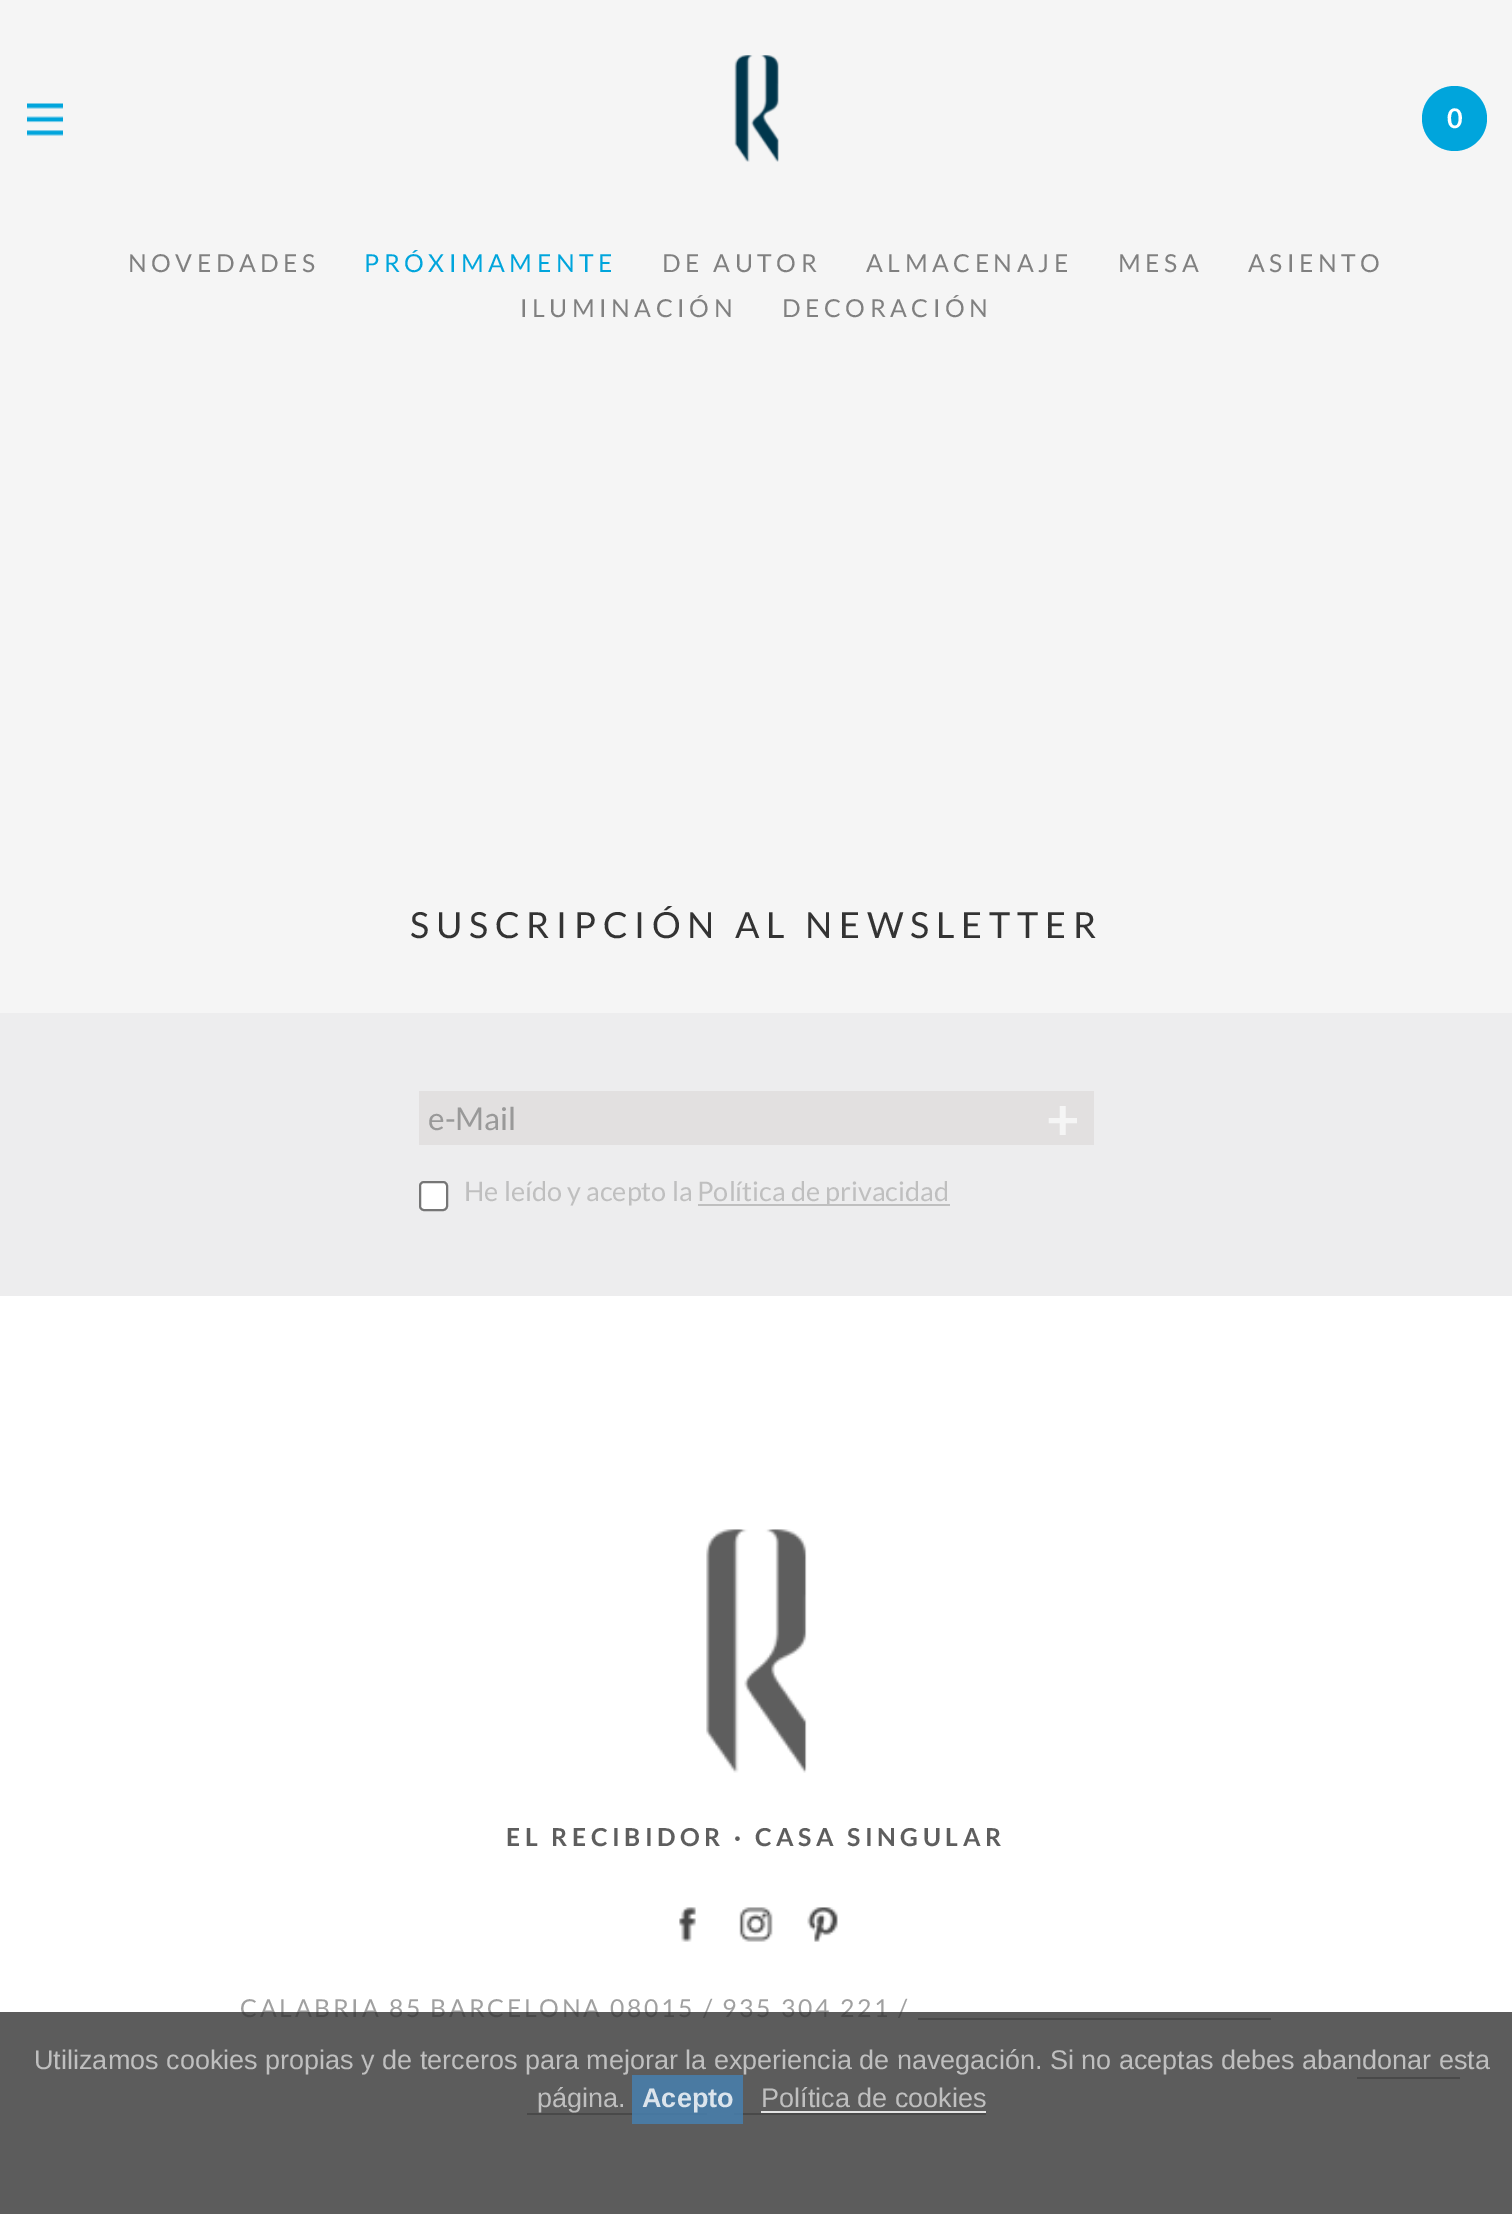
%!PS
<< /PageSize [1512 2214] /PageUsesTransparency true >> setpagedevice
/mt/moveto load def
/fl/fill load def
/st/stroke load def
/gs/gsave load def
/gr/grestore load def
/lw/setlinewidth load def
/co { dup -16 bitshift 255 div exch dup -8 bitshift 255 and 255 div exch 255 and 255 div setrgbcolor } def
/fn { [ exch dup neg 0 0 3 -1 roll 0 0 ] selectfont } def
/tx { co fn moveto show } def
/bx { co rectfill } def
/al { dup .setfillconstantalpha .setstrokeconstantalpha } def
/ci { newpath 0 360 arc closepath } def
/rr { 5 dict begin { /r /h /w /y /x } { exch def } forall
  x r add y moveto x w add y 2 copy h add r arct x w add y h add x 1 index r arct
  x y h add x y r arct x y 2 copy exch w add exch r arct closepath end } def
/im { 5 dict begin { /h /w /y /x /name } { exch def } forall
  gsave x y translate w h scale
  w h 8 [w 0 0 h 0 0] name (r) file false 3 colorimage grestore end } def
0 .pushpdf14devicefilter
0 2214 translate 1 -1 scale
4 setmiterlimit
0 0 1512 2214 16#F5F5F5 bx
(media/1.raw) 27 103 36 33 im
(media/2.raw) 734 55 45 107 im
16#00A5DC co
1454.5 118.5 32.5 ci fl
0 1013 1512 283 16#EDEDEE bx
419 1091 675 54 16#E2E0E0 bx
16#FFFFFF co
420 1182 27 28 4 rr gs fl gr
16#767676 co
2 lw
st
698 1204 252 2 16#BFBFBF bx
0 1296 1512 918 16#FFFFFF bx
(media/3.raw) 706 1529 101 244 im
(media/4.raw) 679 1907 17 35 im
(media/5.raw) 739 1907 34 35 im
(media/6.raw) 807 1907 31 35 im
918 2018 353 2 16#A0A0A0 bx
1357 2077 103 2 16#A0A0A0 bx
527 2113 180 2 16#A0A0A0 bx
734 2113 252 2 16#A0A0A0 bx
(0) 1447 128 /Lato-Bold 27 16#FFFFFF tx
/Lato-Regular 24.75 fn
16#808080 co
128 272 mt 4.5 0 (NOVEDADES) ashow
16#00A5DC co
364 272 mt 4.5 0 (PRÓXIMAMENTE) ashow
16#808080 co
662 272 mt 4.5 0 (DE AUTOR) ashow
866 272 mt 4.5 0 (ALMACENAJE) ashow
1118 272 mt 4.5 0 (MESA) ashow
1248 272 mt 4.5 0 (ASIENTO) ashow
520 317 mt 4.5 0 (ILUMINACIÓN) ashow
782 317 mt 4.5 0 (DECORACIÓN) ashow
/Lato-Regular 36 fn
16#333333 co
410 938 mt 6.75 0 (SUSCRIPCIÓN AL NEWSLETTER) ashow
(e-Mail) 428 1130 /Lato-Regular 31.5 16#999999 tx
(+) 1046 1140 /Lato-Bold 58 16#F5F5F5 tx
(He leído y acepto la) 464 1201 /Lato-Regular 27 16#BFBFBF tx
(Política de privacidad) 697 1201 /Lato-Regular 27 16#BFBFBF tx
/Lato-Bold 24.75 fn
16#5E5E5E co
506 1846 mt 4.5 0 (EL RECIBIDOR · CASA SINGULAR) ashow
/Lato-Regular 24.75 fn
16#A0A0A0 co
240 2017 mt 2.7 0 (CALABRIA 85 BARCELONA 08015 / 935 304 221 /) ashow
0.8 al
0 2012 1512 202 16#333333 bx
1 al
(Utilizamos cookies propias y de terceros para mejorar la experiencia de navegación. Si no aceptas debes abandonar esta) 34 2069 /LiberationSans-Regular 27 16#BFBFBF tx
(página.) 537 2107 /LiberationSans-Regular 27 16#BFBFBF tx
0.8 al
632 2075 111 49 16#4682B4 bx
1 al
(Acepto) 642 2107 /LiberationSans-Bold 27 16#DBE4EC tx
(Política de cookies) 761 2107 /LiberationSans-Regular 27 16#BFBFBF tx
761 2111 225 2 16#E4E4E4 bx
.poppdf14devicefilter showpage
